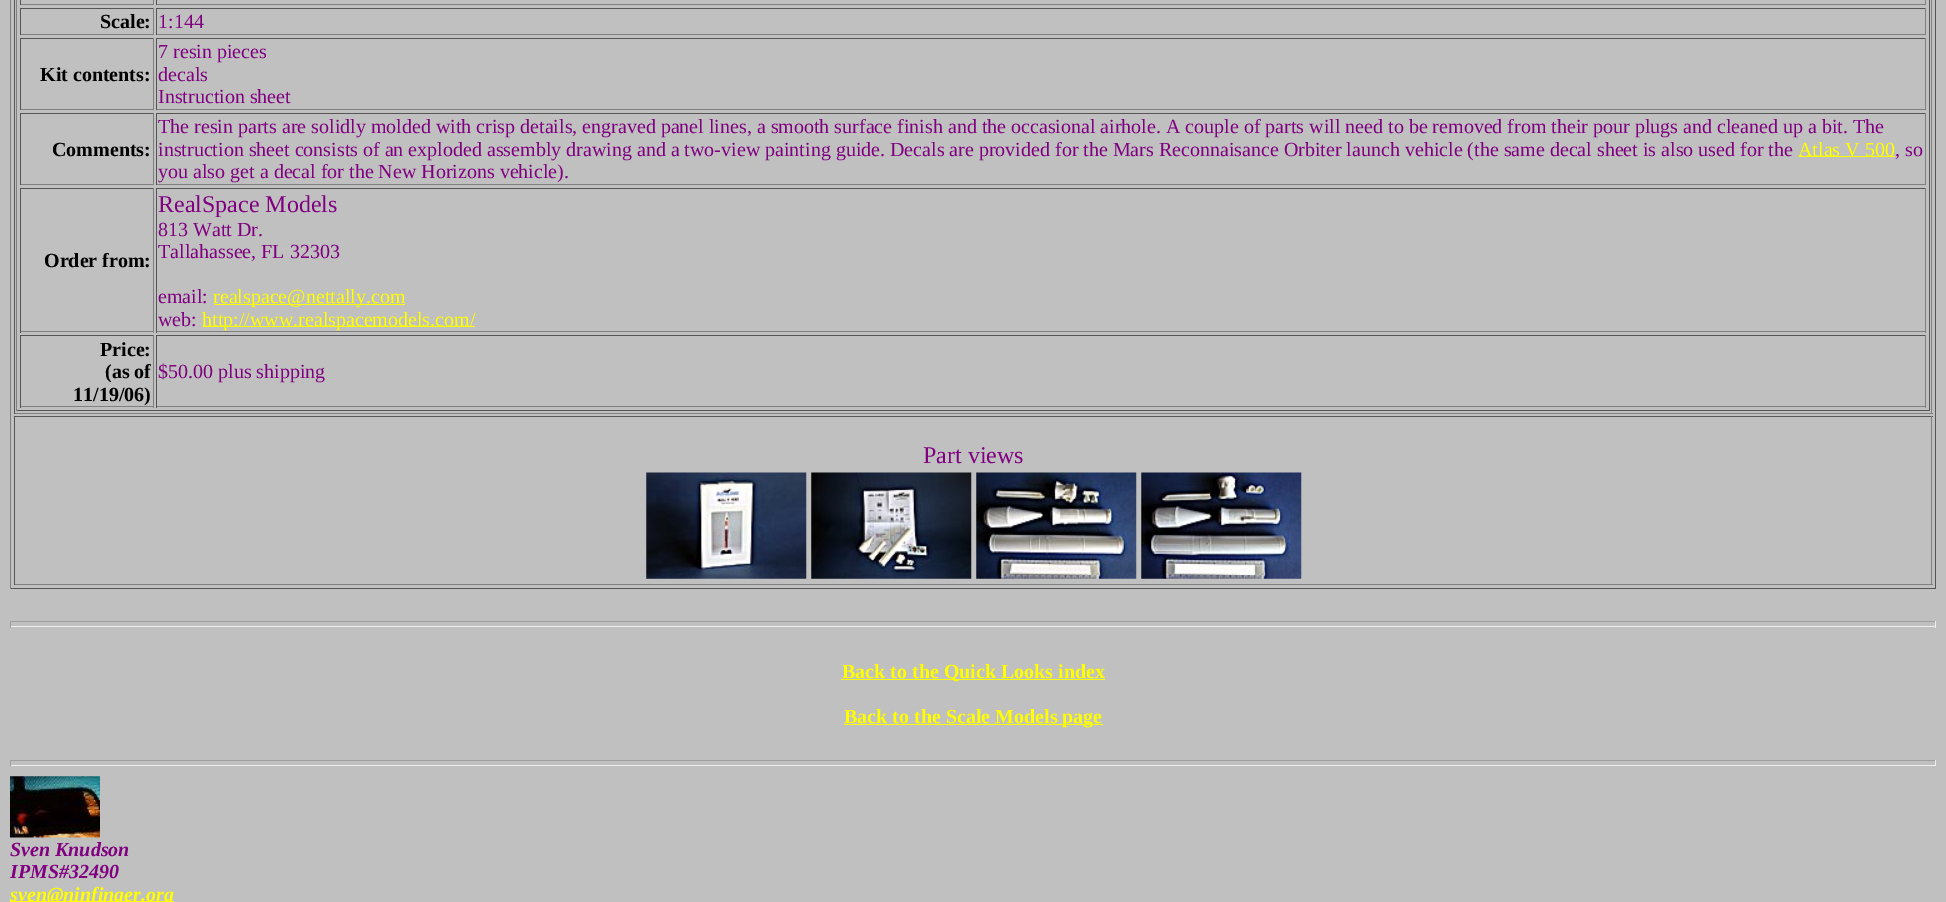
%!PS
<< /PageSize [1946 902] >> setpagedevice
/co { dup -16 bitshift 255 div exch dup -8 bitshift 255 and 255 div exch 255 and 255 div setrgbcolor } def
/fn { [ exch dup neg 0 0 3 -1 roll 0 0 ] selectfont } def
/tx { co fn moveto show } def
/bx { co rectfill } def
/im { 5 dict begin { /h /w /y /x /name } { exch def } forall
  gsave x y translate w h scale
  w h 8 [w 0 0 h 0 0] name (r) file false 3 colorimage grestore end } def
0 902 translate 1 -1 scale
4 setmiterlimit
0 0 1946 902 16#C0C0C0 bx
1935 0 1 589 16#555555 bx
10 588 1926 1 16#555555 bx
10 0 1 589 16#808080 bx
1931 0 1 414 16#808080 bx
14 413 1919 1 16#808080 bx
14 0 1 414 16#555555 bx
1929 0 1 411 16#555555 bx
16 410 1914 1 16#555555 bx
16 0 1 411 16#808080 bx
153 0 1 5 16#808080 bx
20 4 134 1 16#808080 bx
20 0 1 5 16#555555 bx
1925 0 1 5 16#808080 bx
156 4 1770 1 16#808080 bx
156 0 1 5 16#555555 bx
20 8 134 1 16#555555 bx
153 8 1 27 16#808080 bx
20 34 134 1 16#808080 bx
20 8 1 27 16#555555 bx
156 8 1770 1 16#555555 bx
1925 8 1 27 16#808080 bx
156 34 1770 1 16#808080 bx
156 8 1 27 16#555555 bx
20 38 134 1 16#555555 bx
153 38 1 72 16#808080 bx
20 109 134 1 16#808080 bx
20 38 1 72 16#555555 bx
156 38 1770 1 16#555555 bx
1925 38 1 72 16#808080 bx
156 109 1770 1 16#808080 bx
156 38 1 72 16#555555 bx
20 113 134 1 16#555555 bx
153 113 1 72 16#808080 bx
20 184 134 1 16#808080 bx
20 113 1 72 16#555555 bx
156 113 1770 1 16#555555 bx
1925 113 1 72 16#808080 bx
156 184 1770 1 16#808080 bx
156 113 1 72 16#555555 bx
1799 156 96 1 16#FFFF00 bx
20 188 134 1 16#555555 bx
153 188 1 145 16#808080 bx
20 331 134 1 16#808080 bx
20 188 1 145 16#555555 bx
156 188 1770 1 16#555555 bx
1925 188 1 145 16#808080 bx
156 331 1770 1 16#808080 bx
156 188 1 145 16#555555 bx
214 304 191 1 16#FFFF00 bx
203 326 272 1 16#FFFF00 bx
20 335 134 1 16#555555 bx
153 335 1 73 16#808080 bx
20 406 134 1 16#808080 bx
20 335 1 73 16#555555 bx
156 335 1770 1 16#555555 bx
1925 335 1 73 16#808080 bx
156 406 1770 1 16#808080 bx
156 335 1 73 16#555555 bx
14 416 1919 1 16#555555 bx
1931 416 1 169 16#808080 bx
14 584 1919 1 16#808080 bx
14 416 1 169 16#555555 bx
(media/1.raw) 646 472 161 107 im
(media/2.raw) 811 472 161 107 im
(media/3.raw) 976 472 161 107 im
(media/4.raw) 1141 472 161 107 im
10 621 1926 1 16#9F9F9F bx
1935 621 1 7 16#EEEEEE bx
10 626 1926 1 16#EEEEEE bx
10 621 1 7 16#9F9F9F bx
841 679 264 1 16#FFFF00 bx
844 724 259 1 16#FFFF00 bx
10 760 1926 1 16#9F9F9F bx
1935 760 1 6 16#EEEEEE bx
10 765 1926 1 16#EEEEEE bx
10 760 1 6 16#9F9F9F bx
(media/5.raw) 10 776 90 62 im
10 901 164 1 16#FFFF00 bx
(Scale:) 100 28 /LiberationSerif-Bold 20 16#000000 tx
(1:144) 158 28 /LiberationSerif-Regular 20 16#800080 tx
(Kit contents:) 40 81 /LiberationSerif-Bold 20 16#000000 tx
(7 resin pieces) 158 58 /LiberationSerif-Regular 20 16#800080 tx
(decals) 158 81 /LiberationSerif-Regular 20 16#800080 tx
(Instruction sheet) 158 103 /LiberationSerif-Regular 20 16#800080 tx
(Comments:) 52 156 /LiberationSerif-Bold 20 16#000000 tx
(The resin parts are solidly molded with crisp details, engraved panel lines, a smooth surface finish and the occasional airhole. A couple of parts will need to be removed from their pour plugs and cleaned up a bit. The) 158 133 /LiberationSerif-Regular 20 16#800080 tx
(instruction sheet consists of an exploded assembly drawing and a two-view painting guide. Decals are provided for the Mars Reconnaisance Orbiter launch vehicle \(the same decal sheet is also used for the) 158 156 /LiberationSerif-Regular 20 16#800080 tx
(Atlas V 500) 1798 156 /LiberationSerif-Regular 20 16#FFFF00 tx
(, so) 1895 156 /LiberationSerif-Regular 20 16#800080 tx
(you also get a decal for the New Horizons vehicle\).) 158 178 /LiberationSerif-Regular 20 16#800080 tx
(Order from:) 44 267 /LiberationSerif-Bold 20 16#000000 tx
(RealSpace Models) 158 212 /LiberationSerif-Regular 24 16#800080 tx
(813 Watt Dr.) 158 236 /LiberationSerif-Regular 20 16#800080 tx
(Tallahassee, FL 32303) 158 258 /LiberationSerif-Regular 20 16#800080 tx
(email:) 158 303 /LiberationSerif-Regular 20 16#800080 tx
(realspace@nettally.com) 213 303 /LiberationSerif-Regular 20 16#FFFF00 tx
(web:) 158 326 /LiberationSerif-Regular 20 16#800080 tx
(http://www.realspacemodels.com/) 202 326 /LiberationSerif-Regular 20 16#FFFF00 tx
(Price:) 100 356 /LiberationSerif-Bold 20 16#000000 tx
(\(as of) 105 378 /LiberationSerif-Bold 20 16#000000 tx
(11/19/06\)) 73 401 /LiberationSerif-Bold 20 16#000000 tx
($50.00 plus shipping) 158 378 /LiberationSerif-Regular 20 16#800080 tx
(Part views) 923 463 /LiberationSerif-Regular 24 16#800080 tx
(Back to the Quick Looks index) 842 678 /LiberationSerif-Bold 20 16#FFFF00 tx
(Back to the Scale Models page) 844 723 /LiberationSerif-Bold 20 16#FFFF00 tx
(Sven Knudson) 10 856 /LiberationSerif-BoldItalic 20 16#800080 tx
(IPMS#32490) 10 878 /LiberationSerif-BoldItalic 20 16#800080 tx
(sven@ninfinger.org) 10 901 /LiberationSerif-BoldItalic 20 16#FFFF00 tx
showpage
